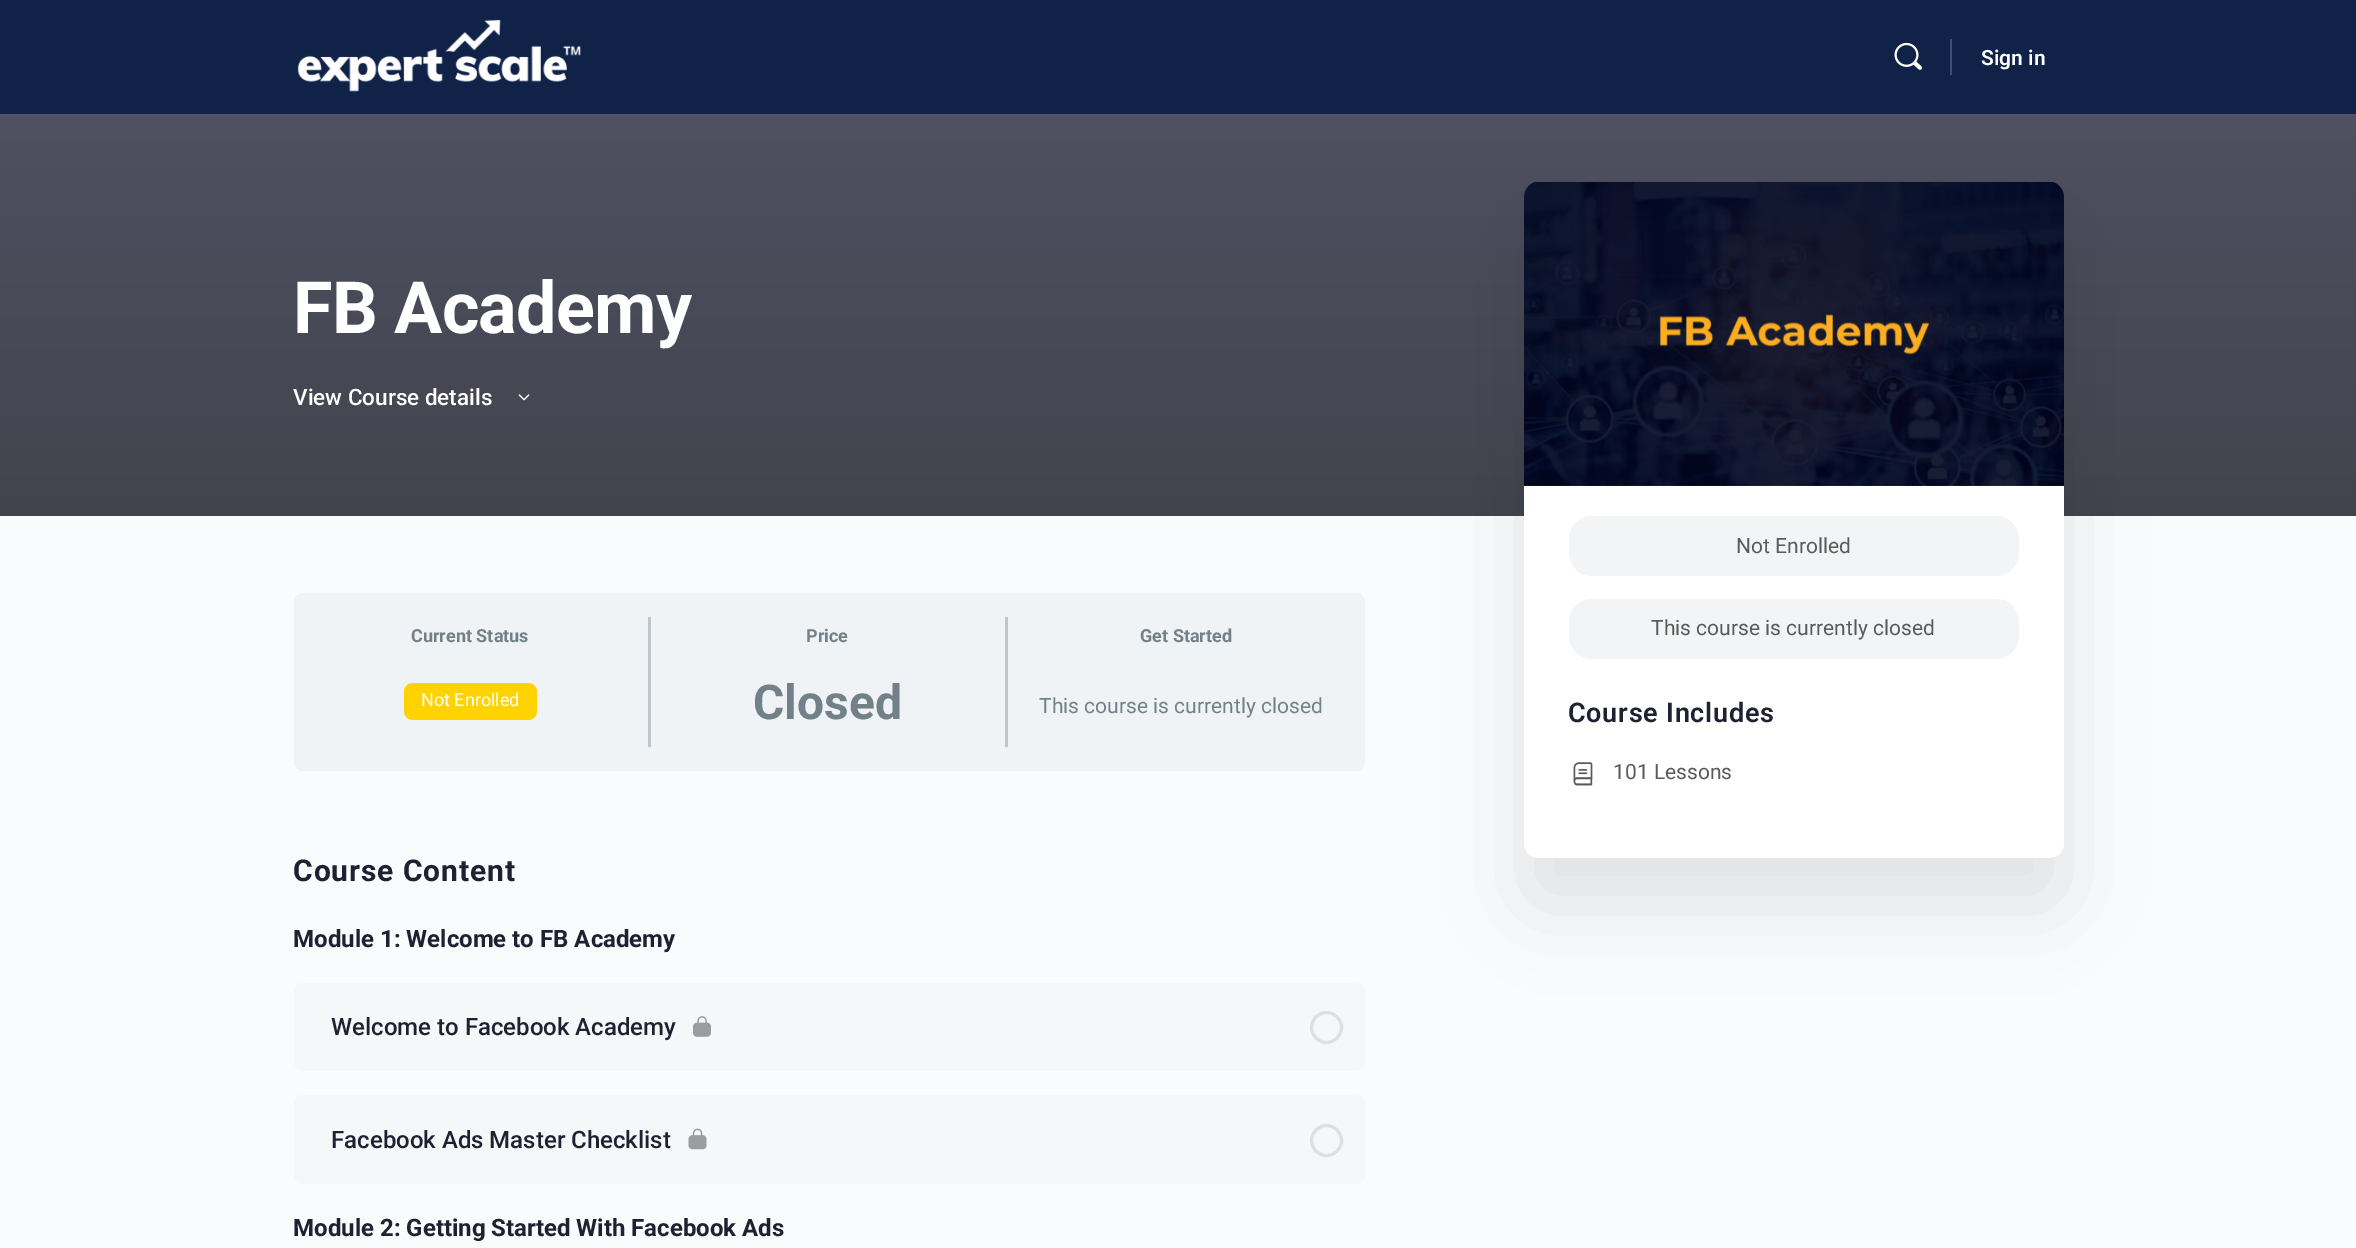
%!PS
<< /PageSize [2356 1248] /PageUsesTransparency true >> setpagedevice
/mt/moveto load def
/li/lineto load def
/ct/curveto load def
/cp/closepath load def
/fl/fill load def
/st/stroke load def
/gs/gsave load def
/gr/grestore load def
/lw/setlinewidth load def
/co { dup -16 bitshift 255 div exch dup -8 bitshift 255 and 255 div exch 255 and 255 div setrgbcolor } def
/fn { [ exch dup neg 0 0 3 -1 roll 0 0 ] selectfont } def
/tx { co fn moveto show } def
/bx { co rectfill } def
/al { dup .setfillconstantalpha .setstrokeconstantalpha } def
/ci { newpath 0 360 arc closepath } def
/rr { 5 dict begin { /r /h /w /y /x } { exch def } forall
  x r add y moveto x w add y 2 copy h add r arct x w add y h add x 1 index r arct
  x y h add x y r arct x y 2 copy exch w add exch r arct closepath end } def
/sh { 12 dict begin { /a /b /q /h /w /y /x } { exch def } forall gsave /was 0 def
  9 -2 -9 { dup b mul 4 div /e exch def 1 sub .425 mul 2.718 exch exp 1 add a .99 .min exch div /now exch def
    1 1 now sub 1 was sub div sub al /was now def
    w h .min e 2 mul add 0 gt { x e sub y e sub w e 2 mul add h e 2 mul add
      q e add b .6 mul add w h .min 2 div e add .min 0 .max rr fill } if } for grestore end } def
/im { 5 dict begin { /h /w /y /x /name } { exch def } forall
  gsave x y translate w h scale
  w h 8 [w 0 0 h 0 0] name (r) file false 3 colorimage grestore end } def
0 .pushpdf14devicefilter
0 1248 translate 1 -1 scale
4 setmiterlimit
0 0 2356 1248 16#FAFBFD bx
gs 0 116 mt 2356 116 li 2356 516 li 0 516 li cp clip newpath
<< /ShadingType 2 /ColorSpace /DeviceRGB /Coords [1178 114 1178 516] /Extend [true true] /Function << /FunctionType 3 /Domain [0 1] /Functions [<< /FunctionType 2 /Domain [0 1] /C0 [.31 .314 .376] /C1 [.31 .314 .376] /N 1 >> << /FunctionType 2 /Domain [0 1] /C0 [.31 .314 .376] /C1 [.259 .267 .302] /N 1 >>] /Bounds [.04] /Encode [0 1 0 1] >> >> shfill gr
16#000000 co
1524 230 540 676 15 40.5 .1 sh
16#525363 co
0 114 mt 0 116 li 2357 116 li 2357 2 li 2356 2 li 2356 114 li cp fl
0 0 2356 114 16#102248 bx
(media/1.raw) 297 19 284 73 im
(media/2.raw) 1894 42 28 28 im
1950 39 2 36 16#404E6D bx
(media/3.raw) 518 394 12 7 im
16#F0F3F6 co
294 593 1071 178 9 rr fl
648 617 3 130 16#BEC5CB bx
16#FFD200 co
404 683 133 37 9 rr fl
1005 617 3 130 16#BEC5CB bx
16#F5F7F9 co
294 983 1071 88 9 rr fl
(media/4.raw) 693 1016 18 21 im
16#DEDFE2 co
3 lw
1326.5 1027.5 15 ci st
16#F5F7F9 co
294 1095 1071 89 9 rr fl
(media/5.raw) 688 1128 19 22 im
16#DEDFE2 co
1326.5 1140.5 15 ci st
(media/6.raw) 1524 182 540 304 im
16#FFFFFF co
1524 486 mt 2064 486 li 2064 843 li 2064 851.5 2057.5 858 2049 858 ct 1539 858 li 1530.5 858 1524 851.5 1524 843 ct cp fl
16#F2F4F5 co
1569 516 450 60 23 rr fl
1569 599 450 60 23 rr fl
(media/7.raw) 1573 762 20 24 im
(Sign in) 1981 65 /Roboto-SemiBold 21 16#FFFFFF tx
/Roboto-Bold 72 fn
293 333 mt -.75 0 (FB Academy) ashow
(View Course details) 293 405 /Roboto-Medium 22.5 16#FFFFFF tx
(Current Status) 411 642 /Roboto-Bold 18 16#728188 tx
(Not Enrolled) 421 706 /Roboto-Regular 18 16#FFFFFF tx
(Price) 806 642 /Roboto-Bold 18 16#728188 tx
(Closed) 753 719 /Roboto-Bold 48 16#728188 tx
(Get Started) 1140 642 /Roboto-Bold 18 16#728188 tx
(This course is currently closed) 1039 713 /Roboto-Regular 21 16#728188 tx
/Roboto-Bold 30 fn
16#1E2132 co
293 881 mt .9 0 (Course Content) ashow
(Module 1: Welcome to FB Academy) 293 947 /Roboto-Bold 24 16#1E2132 tx
(Welcome to Facebook Academy) 331 1035 /Roboto-Medium 24 16#1E2132 tx
(Facebook Ads Master Checklist) 331 1148 /Roboto-Medium 24 16#1E2132 tx
(Module 2: Getting Started With Facebook Ads) 293 1236 /Roboto-Bold 24 16#1E2132 tx
(Not Enrolled) 1736 553 /Roboto-Regular 21 16#5A5A5A tx
(This course is currently closed) 1651 635 /Roboto-Regular 21 16#5A5A5A tx
/Roboto-SemiBold 27 fn
16#1E2132 co
1568 722 mt .75 0 (Course Includes) ashow
(101 Lessons) 1613 779 /Roboto-Regular 21 16#5A5A5A tx
.poppdf14devicefilter showpage
